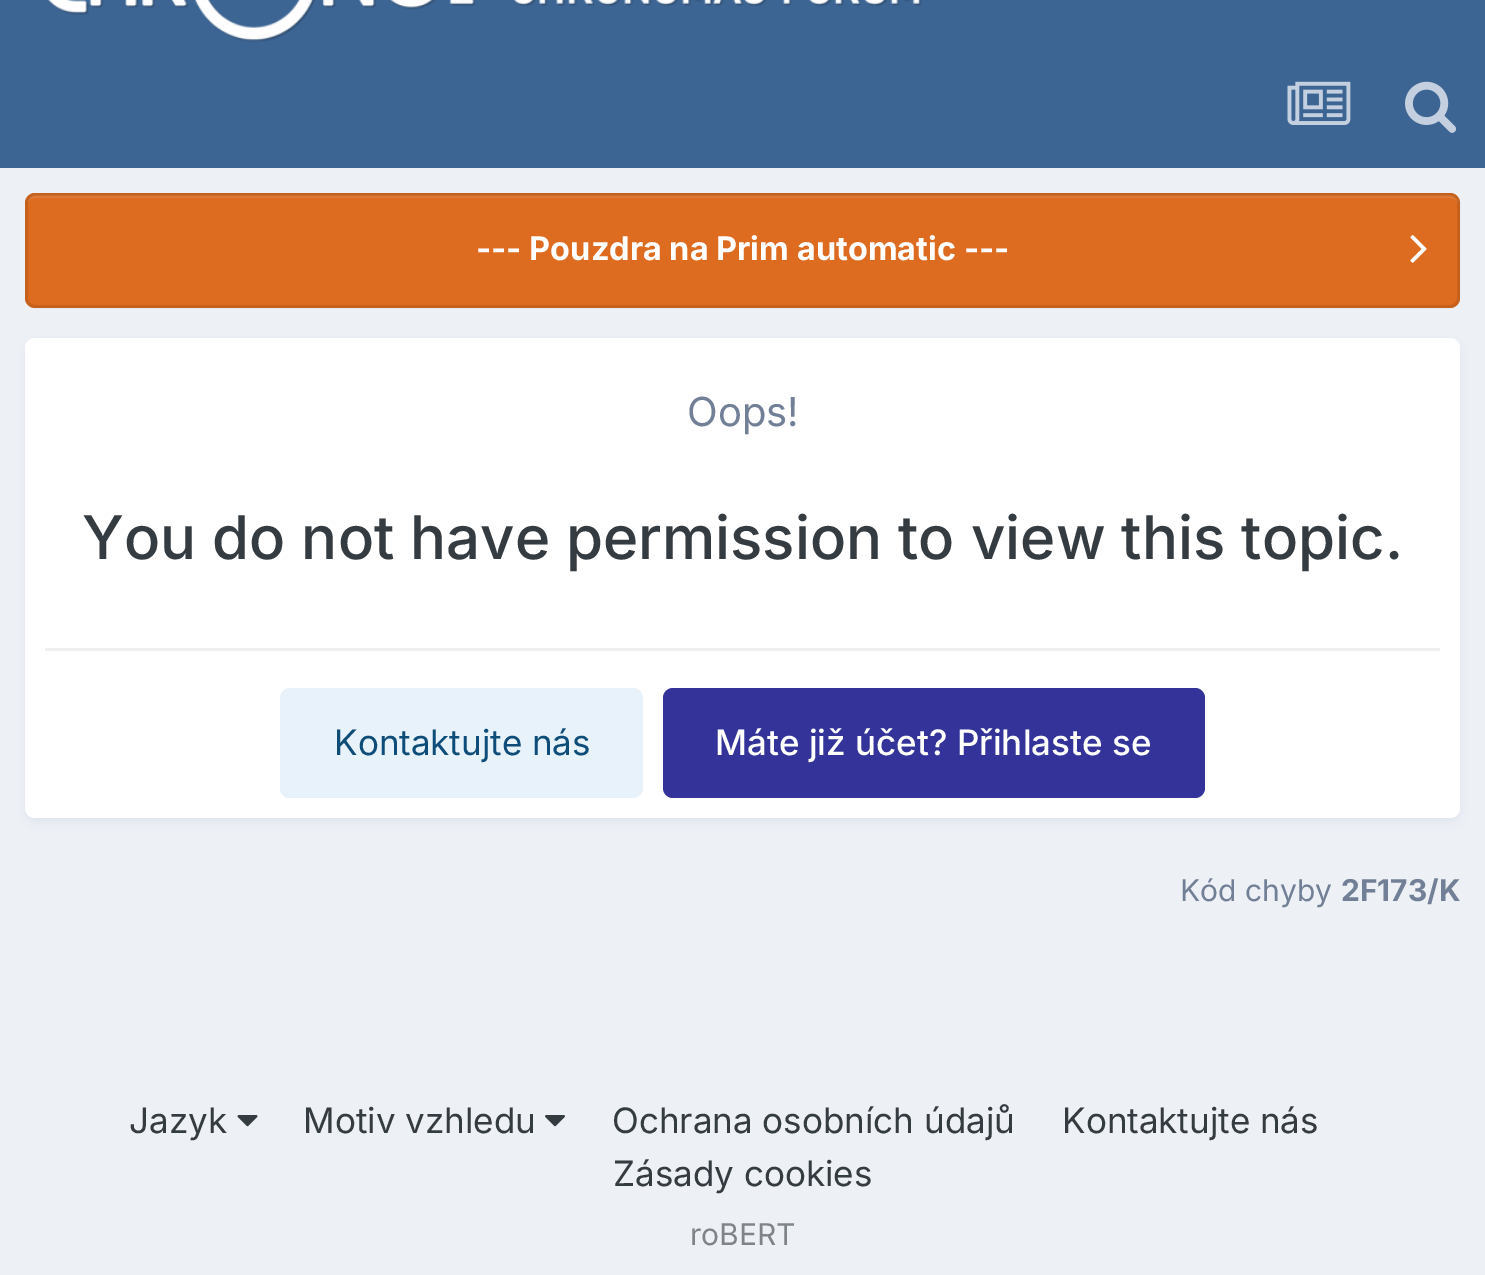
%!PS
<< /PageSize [1485 1275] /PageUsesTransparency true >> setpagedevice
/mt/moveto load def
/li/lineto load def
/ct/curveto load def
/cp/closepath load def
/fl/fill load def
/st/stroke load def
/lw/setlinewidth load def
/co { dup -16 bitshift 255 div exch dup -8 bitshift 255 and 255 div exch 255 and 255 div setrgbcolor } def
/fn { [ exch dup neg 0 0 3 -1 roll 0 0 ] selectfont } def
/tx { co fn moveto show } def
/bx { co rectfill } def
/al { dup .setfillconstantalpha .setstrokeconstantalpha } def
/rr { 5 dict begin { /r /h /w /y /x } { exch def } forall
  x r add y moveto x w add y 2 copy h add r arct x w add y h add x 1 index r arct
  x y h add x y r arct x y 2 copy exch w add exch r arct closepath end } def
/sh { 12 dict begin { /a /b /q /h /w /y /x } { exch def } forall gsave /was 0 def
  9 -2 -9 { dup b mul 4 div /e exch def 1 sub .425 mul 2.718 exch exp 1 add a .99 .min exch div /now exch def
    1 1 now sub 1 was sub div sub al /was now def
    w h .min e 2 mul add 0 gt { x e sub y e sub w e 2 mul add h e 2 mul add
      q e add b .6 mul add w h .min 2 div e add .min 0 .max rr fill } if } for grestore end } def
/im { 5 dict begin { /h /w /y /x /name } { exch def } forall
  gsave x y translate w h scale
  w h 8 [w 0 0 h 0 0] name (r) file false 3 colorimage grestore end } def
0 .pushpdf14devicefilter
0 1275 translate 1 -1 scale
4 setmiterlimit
0 0 1485 1275 16#EDF0F4 bx
0 0 1485 168 16#3D6594 bx
(media/1.raw) 47 0 875 42 im
(media/2.raw) 1287 81 64 44 im
(media/3.raw) 1405 81 52 52 im
16#DD6B20 co
25 193 1435 115 10 rr fl
16#E07A36 co
35 198 mt 1450 198 li 1454 198 1458 201 1458 205 ct 1458 203 li 1458 199 1454 195 1450 195 ct 36 195 li 32 195 28 199 28 203 ct 28 205 li 28 201 31 198 35 198 ct cp fl
0.1 al
16#000000 co
3 lw
26.5 194.5 1432 112 8.5 rr st
1 al
(media/4.raw) 1410 235 17 28 im
16#375476 co
28 345 1430 475 8 5 .1 sh
16#FFFFFF co
25 338 1435 480 10 rr fl
45 648 1395 3 16#EFEFF0 bx
16#E8F2FA co
280 688 363 110 10 rr fl
16#333399 co
663 688 542 110 10 rr fl
(media/5.raw) 237 1115 21 12 im
(media/6.raw) 545 1115 20 12 im
(--- Pouzdra na Prim automatic ---) 476 260 /Inter-Bold 32.5 16#FFFFFF tx
(Oops!) 687 426 /Inter-Regular 40 16#718096 tx
(You do not have permission to view this topic.) 82 559 /Inter-Medium 60 16#353C41 tx
(Kontaktujte nás) 334 755 /Inter-Regular 35 16#0E4C79 tx
(Máte již účet? Přihlaste se) 715 755 /Inter-Medium 35 16#FFFFFF tx
(Kód chyby) 1180 901 /Inter-Regular 30 16#718096 tx
(2F173/K) 1341 901 /Inter-Bold 30 16#718096 tx
(Jazyk) 129 1133 /Inter-Regular 35 16#353C41 tx
(Motiv vzhledu) 303 1133 /Inter-Regular 35 16#353C41 tx
(Ochrana osobních údajů) 612 1133 /Inter-Regular 35 16#353C41 tx
(Kontaktujte nás) 1062 1133 /Inter-Regular 35 16#353C41 tx
(Zásady cookies) 613 1186 /Inter-Regular 35 16#353C41 tx
(roBERT) 690 1245 /Inter-Regular 30 16#7F8489 tx
.poppdf14devicefilter showpage
